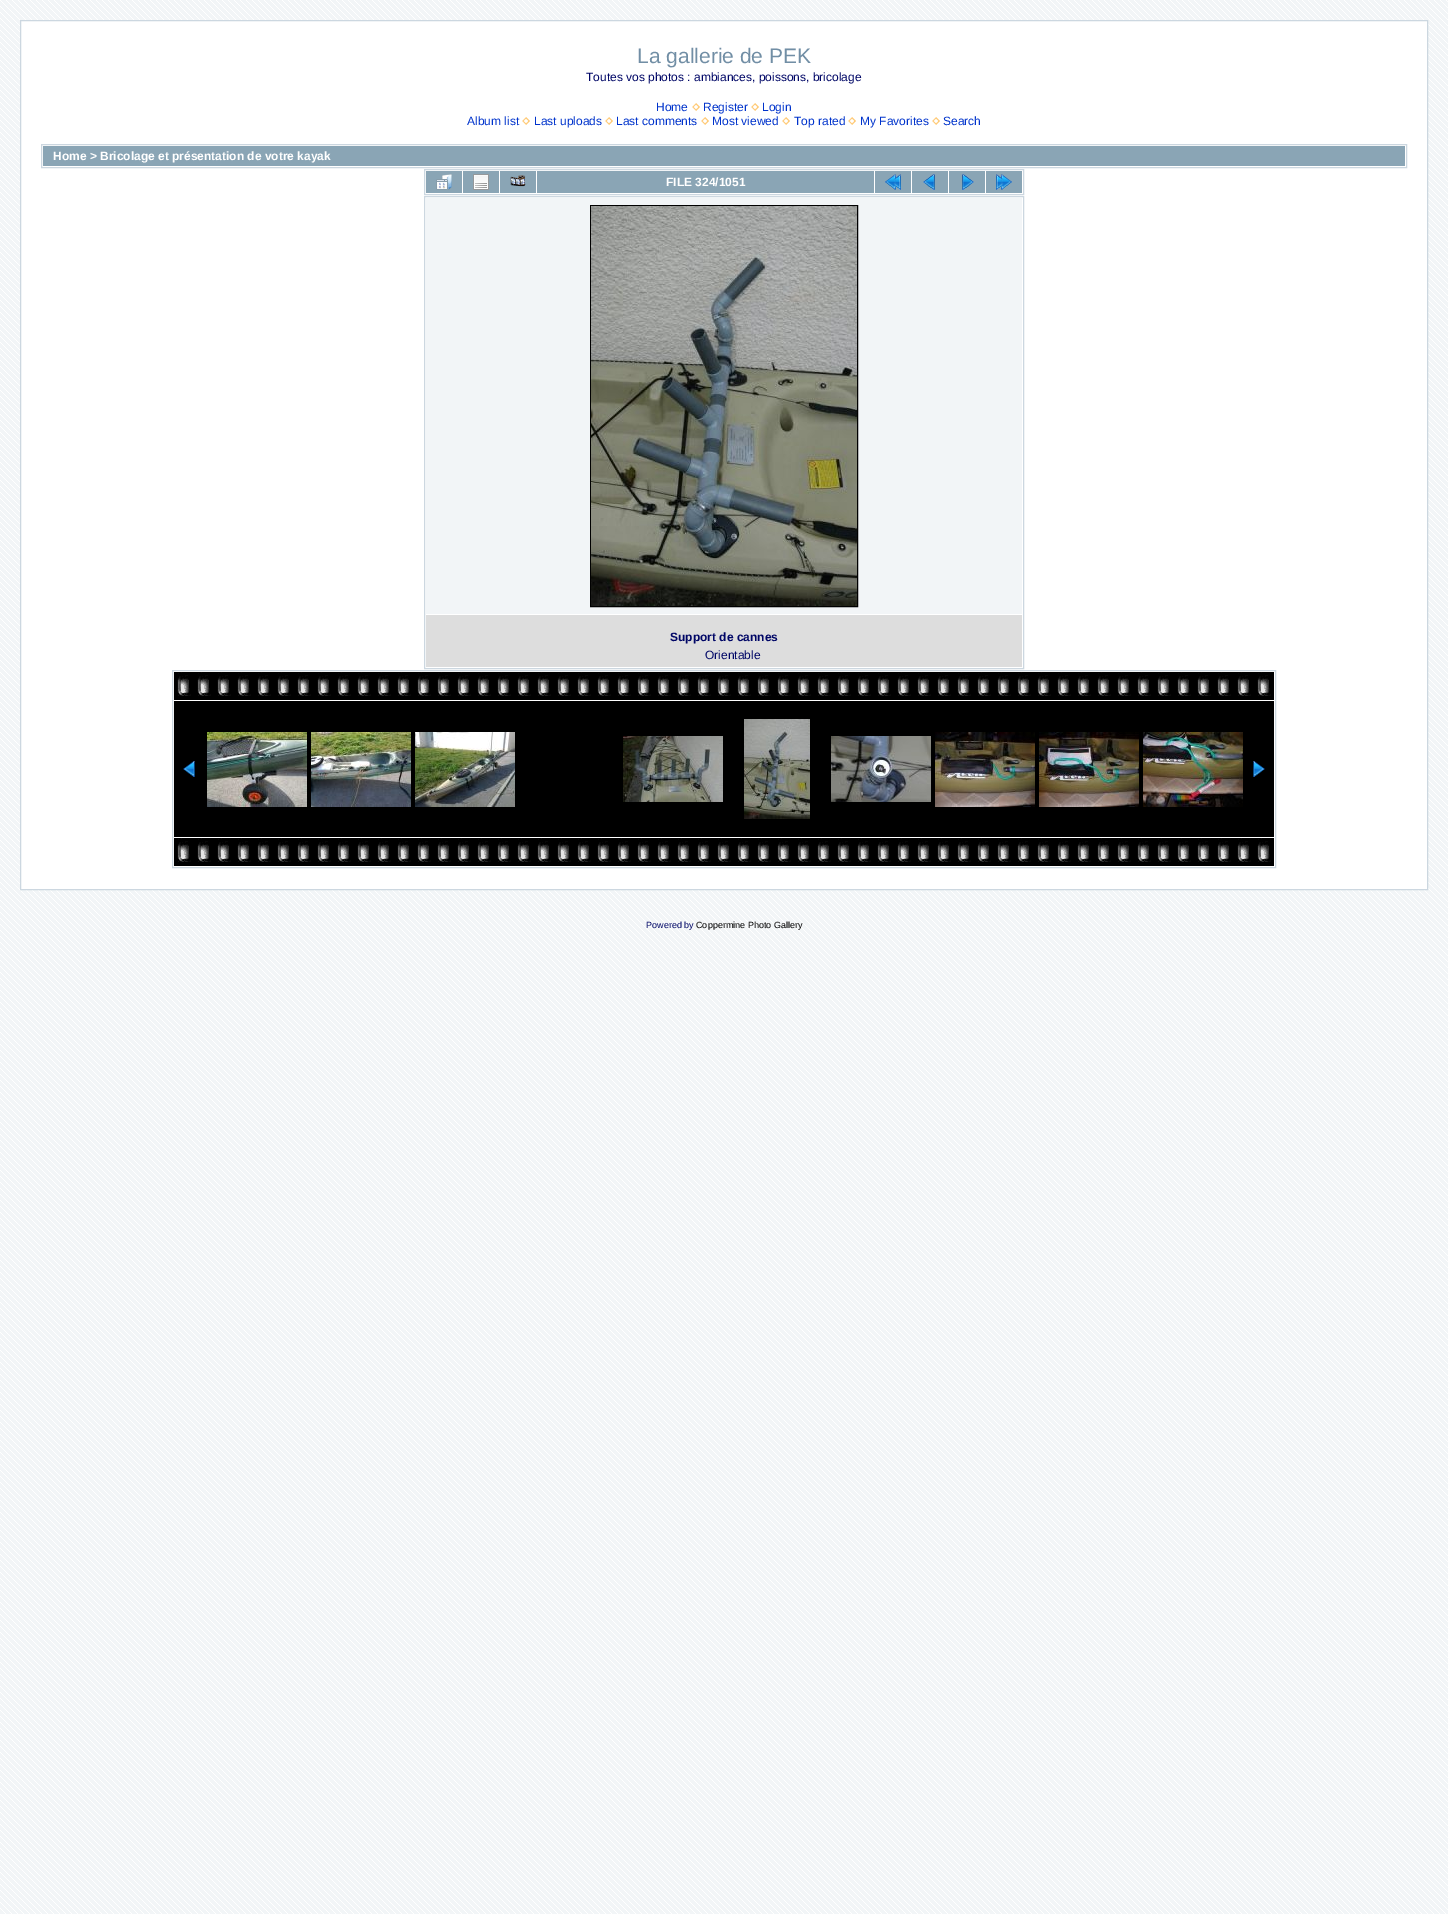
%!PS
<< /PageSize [1448 1914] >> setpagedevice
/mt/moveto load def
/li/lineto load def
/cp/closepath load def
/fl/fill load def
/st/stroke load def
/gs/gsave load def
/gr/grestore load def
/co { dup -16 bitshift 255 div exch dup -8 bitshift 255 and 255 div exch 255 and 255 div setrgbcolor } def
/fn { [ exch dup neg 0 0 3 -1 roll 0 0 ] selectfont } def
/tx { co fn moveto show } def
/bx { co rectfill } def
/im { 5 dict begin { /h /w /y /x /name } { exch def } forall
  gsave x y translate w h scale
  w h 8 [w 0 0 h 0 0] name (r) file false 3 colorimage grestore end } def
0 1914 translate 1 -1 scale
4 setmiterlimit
0 0 1448 1914 16#F2F5F7 bx
(media/1.raw) 0 0 1448 1914 im
16#FFFFFF co
20.5 20.5 mt 1427.5 20.5 li 1427.5 889.5 li 20.5 889.5 li cp gs fl gr
16#CCD7E0 co
st
(media/2.raw) 692 103 8 8 im
(media/2.raw) 751 103 8 8 im
(media/2.raw) 522 117 8 8 im
(media/2.raw) 605 117 8 8 im
(media/2.raw) 701 117 8 8 im
(media/2.raw) 782 117 8 8 im
(media/2.raw) 848 117 8 8 im
(media/2.raw) 932 117 8 8 im
41.5 144.5 1365 23 rectstroke
43 146 1362 20 16#8AA5B5 bx
16#CCD7E0 co
424.5 169.5 599 25 rectstroke
426 171 36 22 16#8AA5B5 bx
(media/3.raw) 436 174 16 16 im
463 171 36 22 16#8AA5B5 bx
(media/4.raw) 473 174 16 16 im
500 171 36 22 16#8AA5B5 bx
(media/5.raw) 510 175 16 12 im
537 171 337 22 16#8AA5B5 bx
875 171 36 22 16#8AA5B5 bx
(media/6.raw) 885 174 16 16 im
912 171 36 22 16#8AA5B5 bx
(media/7.raw) 923 174 12 16 im
949 171 36 22 16#8AA5B5 bx
(media/8.raw) 962 174 12 16 im
986 171 36 22 16#8AA5B5 bx
(media/9.raw) 996 174 16 16 im
16#CCD7E0 co
424.5 196.5 599 472 rectstroke
426 198 596 416 16#F2F5F7 bx
16#000000 co
590.5 205.5 267 401 rectstroke
(media/10.raw) 591 206 266 400 im
426 615 596 52 16#DDDDDD bx
16#CCD7E0 co
172.5 670.5 1103 197 rectstroke
174 672 1100 28 16#000000 bx
(media/11.raw) 177 672 1094 24 im
174 701 1100 136 16#000000 bx
(media/12.raw) 183 761 12 16 im
(media/13.raw) 207 732 100 75 im
(media/14.raw) 311 732 100 75 im
(media/15.raw) 415 732 100 75 im
(media/16.raw) 623 736 100 66 im
(media/17.raw) 744 719 66 100 im
(media/18.raw) 831 736 100 66 im
(media/19.raw) 935 732 100 75 im
(media/20.raw) 1039 732 100 75 im
(media/21.raw) 1143 732 100 75 im
(media/22.raw) 1253 761 12 16 im
174 838 1100 28 16#000000 bx
(media/11.raw) 177 838 1094 24 im
(La gallerie de PEK) 637 63 /LiberationSans-Regular 21 16#718EA5 tx
(Toutes vos photos : ambiances, poissons, bricolage) 586 81 /LiberationSans-Regular 12 16#000666 tx
(Home) 656 111 /LiberationSans-Regular 12 16#0033CC tx
(Register) 703 111 /LiberationSans-Regular 12 16#0033CC tx
(Login) 762 111 /LiberationSans-Regular 12 16#0033CC tx
(Album list) 467 125 /LiberationSans-Regular 12 16#0033CC tx
(Last uploads) 534 125 /LiberationSans-Regular 12 16#0033CC tx
(Last comments) 616 125 /LiberationSans-Regular 12 16#0033CC tx
(Most viewed) 712 125 /LiberationSans-Regular 12 16#0033CC tx
(Top rated) 794 125 /LiberationSans-Regular 12 16#0033CC tx
(My Favorites) 860 125 /LiberationSans-Regular 12 16#0033CC tx
(Search) 943 125 /LiberationSans-Regular 12 16#0033CC tx
(Home > Bricolage et présentation de votre kayak) 53 160 /LiberationSans-Bold 12 16#FFFFFF tx
(FILE 324/1051) 666 186 /LiberationSans-Bold 12 16#FFFFFF tx
(Support de cannes) 670 641 /LiberationSans-Bold 12 16#000666 tx
(Orientable) 705 659 /LiberationSans-Regular 12 16#000666 tx
(Powered by) 646 928 /LiberationSans-Regular 9 16#000666 tx
(Coppermine Photo Gallery) 696 928 /LiberationSans-Regular 9 16#000000 tx
showpage
